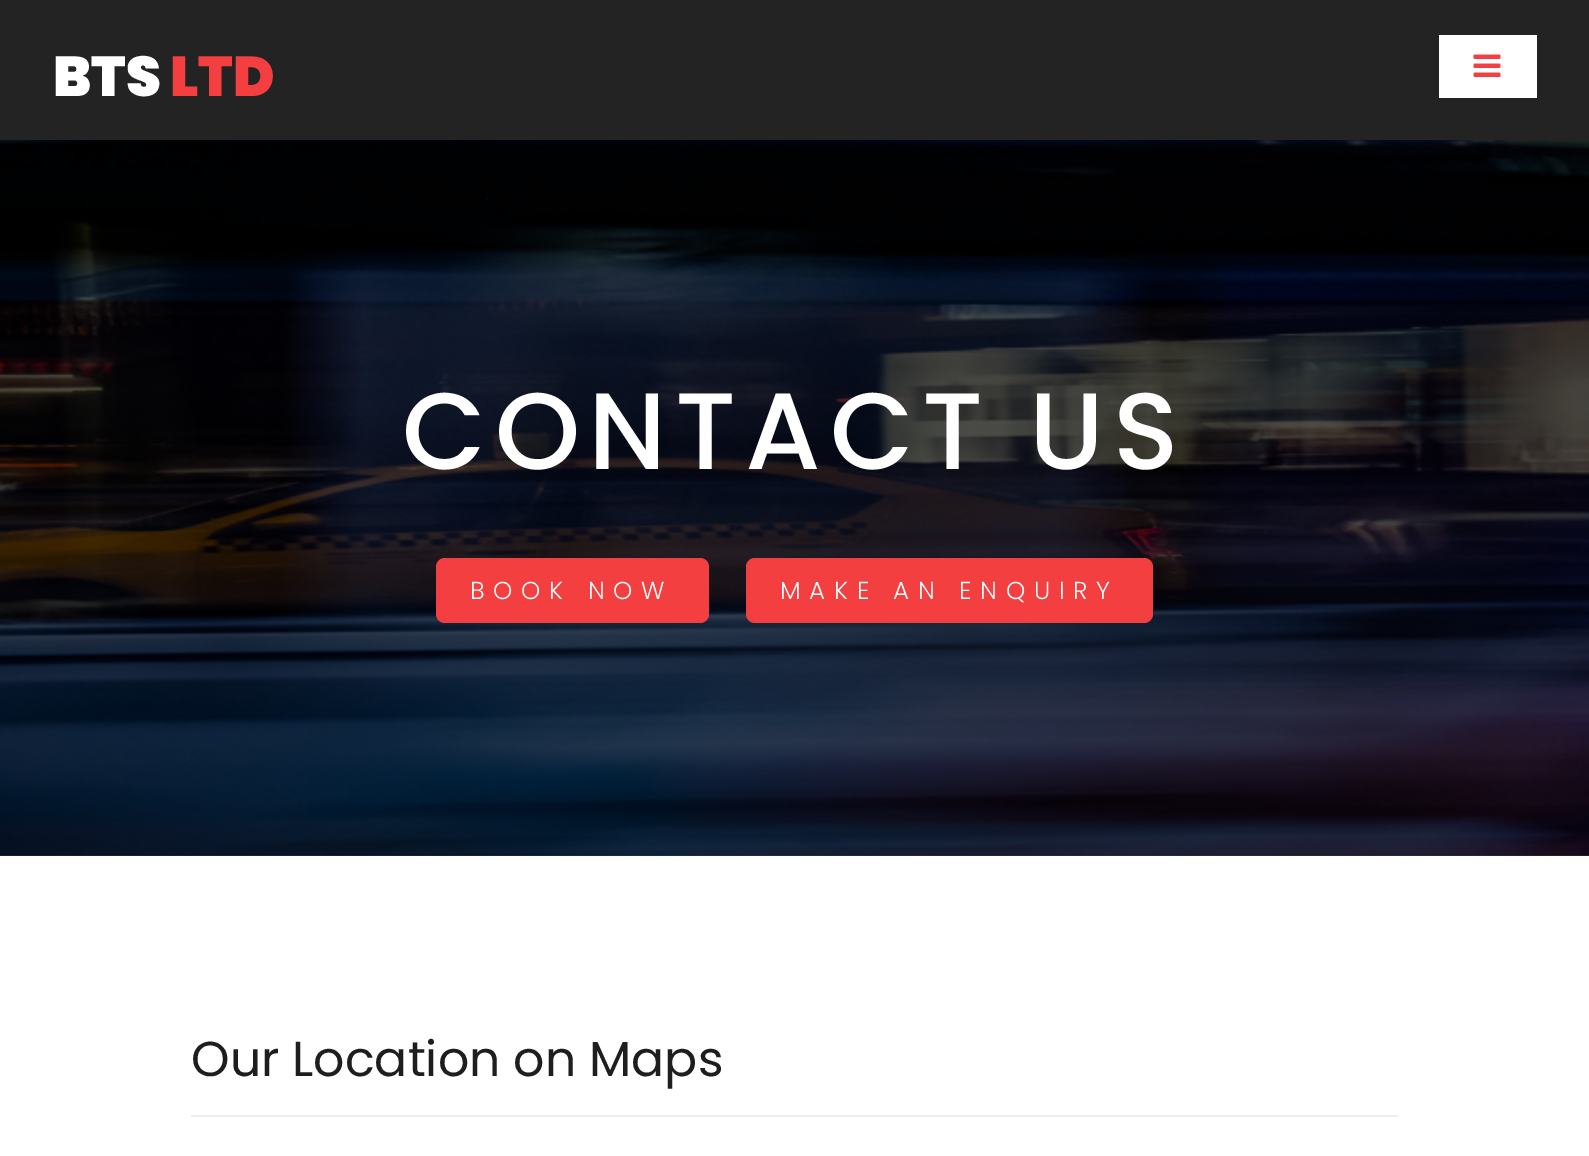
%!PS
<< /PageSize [1589 1156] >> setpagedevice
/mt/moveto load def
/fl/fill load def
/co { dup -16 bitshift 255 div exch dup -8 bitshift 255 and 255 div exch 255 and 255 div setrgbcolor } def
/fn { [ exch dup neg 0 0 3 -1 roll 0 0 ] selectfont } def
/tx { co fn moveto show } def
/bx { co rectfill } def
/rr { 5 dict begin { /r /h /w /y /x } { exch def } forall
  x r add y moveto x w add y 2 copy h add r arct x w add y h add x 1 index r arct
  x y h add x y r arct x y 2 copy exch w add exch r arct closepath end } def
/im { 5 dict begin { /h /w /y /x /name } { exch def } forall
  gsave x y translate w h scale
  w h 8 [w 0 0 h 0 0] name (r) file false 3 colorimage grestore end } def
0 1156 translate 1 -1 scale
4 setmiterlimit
0 0 1589 1156 16#FFFFFF bx
0 0 1589 140 16#232323 bx
1439 35 98 63 16#FFFFFF bx
(media/1.raw) 1473 54 28 23 im
(media/2.raw) 0 140 1589 716 im
16#F33F3F co
436 558 273 65 9 rr fl
746 558 407 65 9 rr fl
191 1115 1207 2 16#EEEEEE bx
(BTS) 53 96 /Poppins-Black 56 16#FFFFFF tx
(LTD) 170 96 /Poppins-Black 56 16#F33F3F tx
/Poppins-Medium 108.5 fn
16#FFFFFF co
402 469 mt 8.75 0 (CONTACT US) ashow
/Poppins-Light 24.5 fn
470 599 mt 8.75 0 (BOOK NOW) ashow
780 599 mt 8.75 0 (MAKE AN ENQUIRY) ashow
(Our Location on Maps) 191 1076 /Poppins-Regular 49 16#1E1E1E tx
showpage
